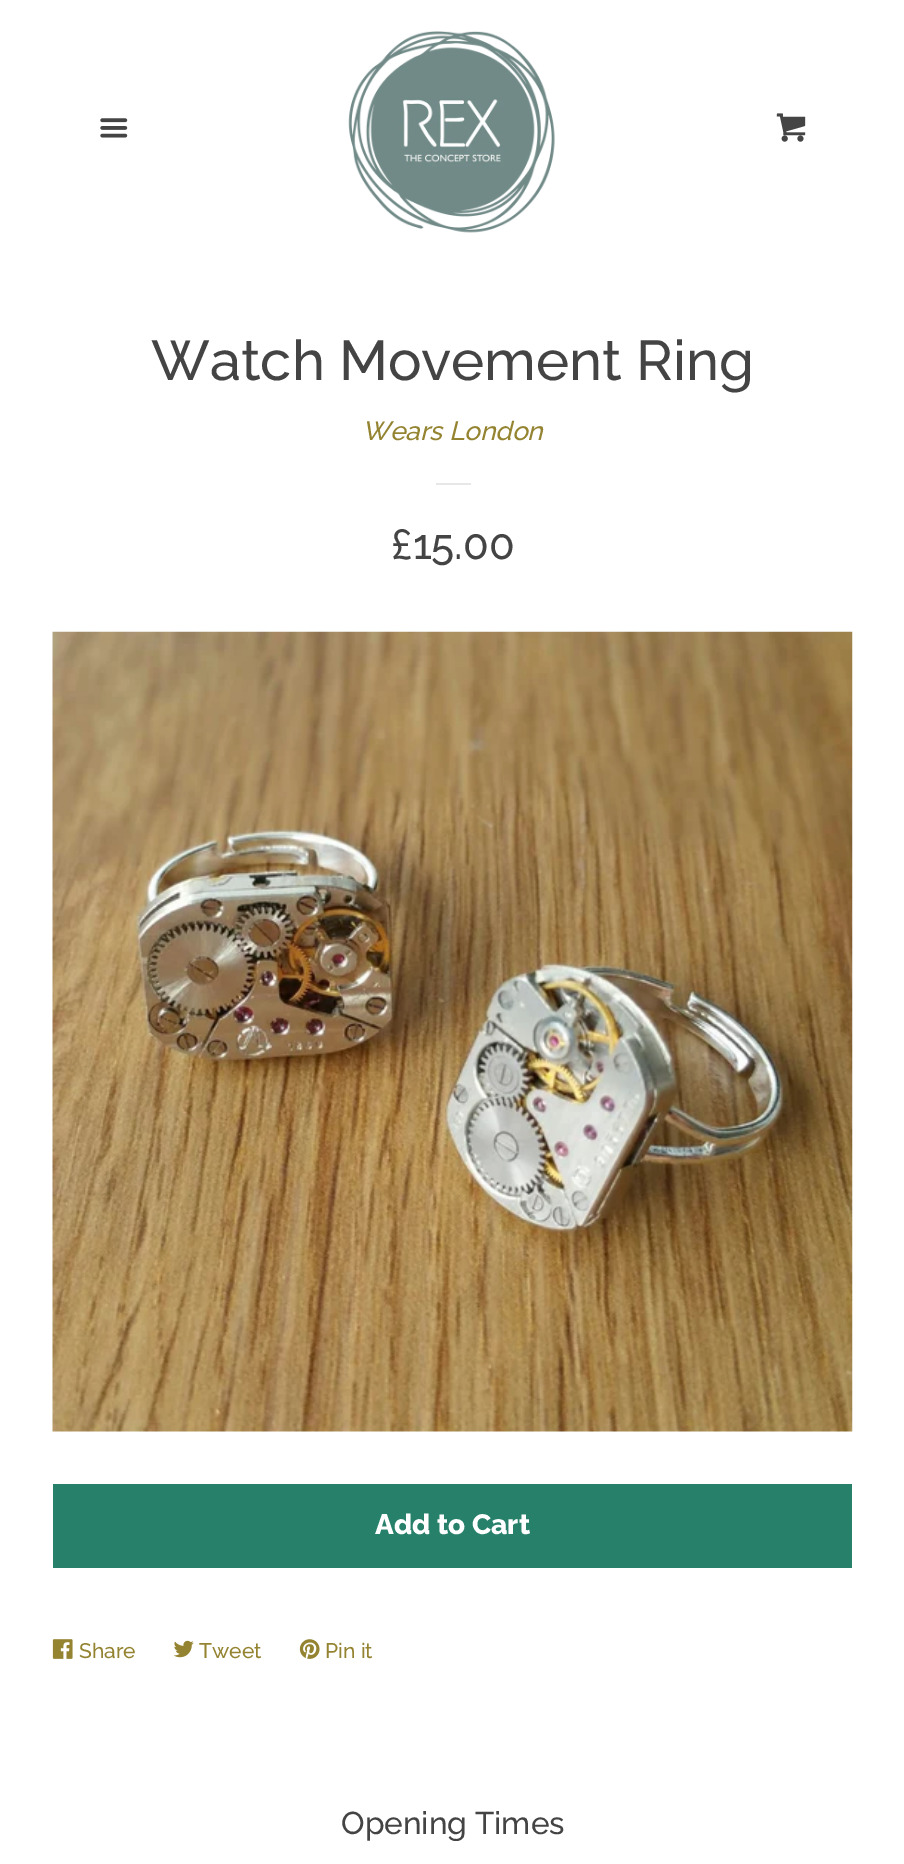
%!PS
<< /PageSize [904 1864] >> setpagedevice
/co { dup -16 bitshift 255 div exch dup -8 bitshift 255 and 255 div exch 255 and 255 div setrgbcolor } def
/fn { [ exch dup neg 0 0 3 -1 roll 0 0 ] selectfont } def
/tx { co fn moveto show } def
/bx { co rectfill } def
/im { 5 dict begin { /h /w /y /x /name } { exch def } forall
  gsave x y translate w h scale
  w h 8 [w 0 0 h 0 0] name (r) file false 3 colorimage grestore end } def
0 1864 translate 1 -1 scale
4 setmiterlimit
0 0 904 1864 16#FFFFFF bx
(media/1.raw) 100 118 28 20 im
(media/2.raw) 348 31 207 202 im
(media/3.raw) 776 113 30 29 im
436 483 35 2 16#E7E7E7 bx
(media/4.raw) 52 631 801 801 im
53 1484 799 84 16#27806A bx
(media/5.raw) 52 1639 21 20 im
(media/6.raw) 173 1640 21 18 im
(media/7.raw) 299 1639 21 20 im
(Watch Movement Ring) 151 380 /Raleway-Medium 56 16#444444 tx
(Wears London) 362 440 /Raleway-MediumItalic 26.25 16#948330 tx
(£15.00) 391 559 /Raleway-Medium 42 16#444444 tx
(Add to Cart) 375 1534 /Raleway-ExtraBold 28 16#FFFFFF tx
(Share) 79 1658 /Raleway-Medium 21 16#948330 tx
(Tweet) 199 1658 /Raleway-Medium 21 16#948330 tx
(Pin it) 325 1658 /Raleway-Medium 21 16#948330 tx
(Opening Times) 341 1834 /Raleway-Medium 31.5 16#444444 tx
showpage
